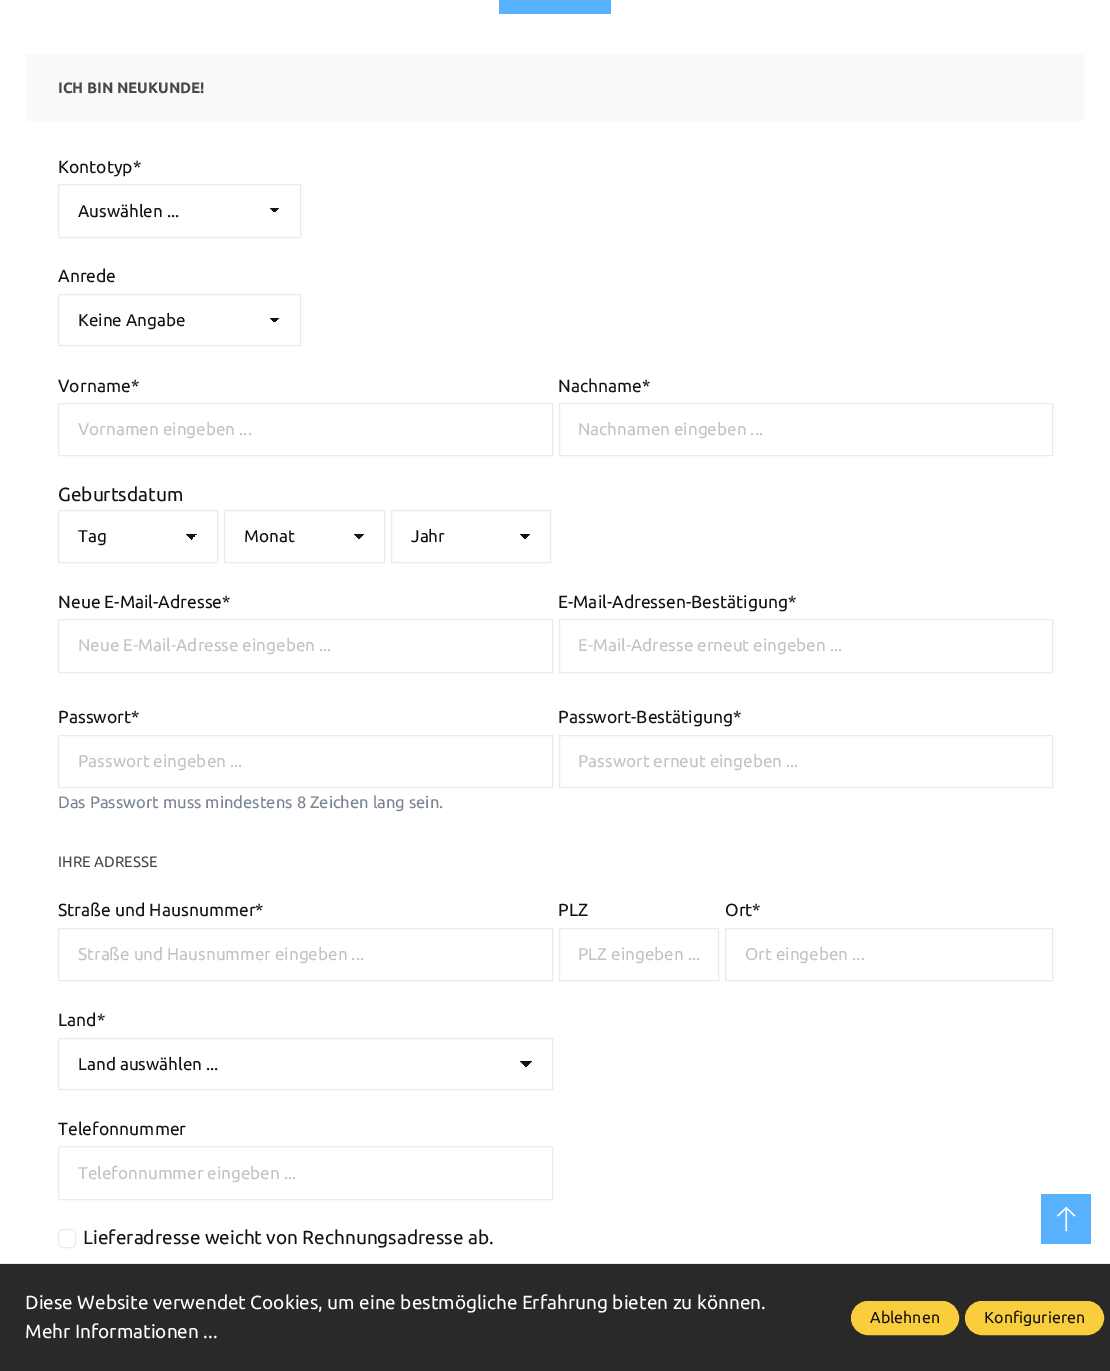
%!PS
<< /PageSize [1110 1371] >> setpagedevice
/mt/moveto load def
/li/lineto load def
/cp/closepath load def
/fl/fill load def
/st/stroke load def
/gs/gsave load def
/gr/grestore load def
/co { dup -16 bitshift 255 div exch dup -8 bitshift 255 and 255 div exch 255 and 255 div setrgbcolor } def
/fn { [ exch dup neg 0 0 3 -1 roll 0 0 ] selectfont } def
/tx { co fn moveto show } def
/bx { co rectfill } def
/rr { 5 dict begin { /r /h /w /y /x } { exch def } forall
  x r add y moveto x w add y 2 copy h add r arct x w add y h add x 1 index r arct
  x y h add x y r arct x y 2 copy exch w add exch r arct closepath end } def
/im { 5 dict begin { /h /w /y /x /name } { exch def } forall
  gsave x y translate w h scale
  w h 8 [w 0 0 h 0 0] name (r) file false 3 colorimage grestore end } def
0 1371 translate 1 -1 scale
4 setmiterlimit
0 0 1110 1371 16#FFFFFF bx
499 0 112 14 16#58B1FC bx
26 54 1058 67 16#F8F9FA bx
gs 275 208 mt 281 208 li 281 212 li 275 212 li cp clip newpath
<< /ShadingType 2 /ColorSpace /DeviceRGB /Coords [275 207 281 213] /Extend [true true] /Function << /FunctionType 3 /Domain [0 1] /Functions [<< /FunctionType 2 /Domain [0 1] /C0 [.075 .075 .075] /C1 [.075 .075 .075] /N 1 >> << /FunctionType 2 /Domain [0 1] /C0 [1 1 1] /C1 [1 1 1] /N 1 >>] /Bounds [.5] /Encode [0 1 0 1] >> >> shfill gr
gs 269 208 mt 275 208 li 275 212 li 269 212 li cp clip newpath
<< /ShadingType 2 /ColorSpace /DeviceRGB /Coords [269 213 275 207] /Extend [true true] /Function << /FunctionType 3 /Domain [0 1] /Functions [<< /FunctionType 2 /Domain [0 1] /C0 [1 1 1] /C1 [1 1 1] /N 1 >> << /FunctionType 2 /Domain [0 1] /C0 [.075 .075 .075] /C1 [.075 .075 .075] /N 1 >>] /Bounds [.5] /Encode [0 1 0 1] >> >> shfill gr
16#ECECE7 co
58.5 184.5 242 53 rectstroke
gs 275 318 mt 281 318 li 281 322 li 275 322 li cp clip newpath
<< /ShadingType 2 /ColorSpace /DeviceRGB /Coords [275 317 281 323] /Extend [true true] /Function << /FunctionType 3 /Domain [0 1] /Functions [<< /FunctionType 2 /Domain [0 1] /C0 [.075 .075 .075] /C1 [.075 .075 .075] /N 1 >> << /FunctionType 2 /Domain [0 1] /C0 [1 1 1] /C1 [1 1 1] /N 1 >>] /Bounds [.5] /Encode [0 1 0 1] >> >> shfill gr
gs 269 318 mt 275 318 li 275 322 li 269 322 li cp clip newpath
<< /ShadingType 2 /ColorSpace /DeviceRGB /Coords [269 323 275 317] /Extend [true true] /Function << /FunctionType 3 /Domain [0 1] /Functions [<< /FunctionType 2 /Domain [0 1] /C0 [1 1 1] /C1 [1 1 1] /N 1 >> << /FunctionType 2 /Domain [0 1] /C0 [.075 .075 .075] /C1 [.075 .075 .075] /N 1 >>] /Bounds [.5] /Encode [0 1 0 1] >> >> shfill gr
58.5 294.5 242 51 rectstroke
58.5 403.5 494 52 rectstroke
559.5 403.5 493 52 rectstroke
gs 191 534 mt 198 534 li 198 540 li 191 540 li cp clip newpath
<< /ShadingType 2 /ColorSpace /DeviceRGB /Coords [191 533 198 540] /Extend [true true] /Function << /FunctionType 3 /Domain [0 1] /Functions [<< /FunctionType 2 /Domain [0 1] /C0 [.075 .075 .075] /C1 [.075 .075 .075] /N 1 >> << /FunctionType 2 /Domain [0 1] /C0 [1 1 1] /C1 [1 1 1] /N 1 >>] /Bounds [.5] /Encode [0 1 0 1] >> >> shfill gr
gs 185 534 mt 191 534 li 191 539 li 185 539 li cp clip newpath
<< /ShadingType 2 /ColorSpace /DeviceRGB /Coords [185 540 191 533] /Extend [true true] /Function << /FunctionType 3 /Domain [0 1] /Functions [<< /FunctionType 2 /Domain [0 1] /C0 [1 1 1] /C1 [1 1 1] /N 1 >> << /FunctionType 2 /Domain [0 1] /C0 [.075 .075 .075] /C1 [.075 .075 .075] /N 1 >>] /Bounds [.5] /Encode [0 1 0 1] >> >> shfill gr
58.5 510.5 159 52 rectstroke
gs 359 534 mt 365 534 li 365 539 li 359 539 li cp clip newpath
<< /ShadingType 2 /ColorSpace /DeviceRGB /Coords [359 533 365 540] /Extend [true true] /Function << /FunctionType 3 /Domain [0 1] /Functions [<< /FunctionType 2 /Domain [0 1] /C0 [.075 .075 .075] /C1 [.075 .075 .075] /N 1 >> << /FunctionType 2 /Domain [0 1] /C0 [1 1 1] /C1 [1 1 1] /N 1 >>] /Bounds [.5] /Encode [0 1 0 1] >> >> shfill gr
gs 353 534 mt 359 534 li 359 539 li 353 539 li cp clip newpath
<< /ShadingType 2 /ColorSpace /DeviceRGB /Coords [353 540 359 533] /Extend [true true] /Function << /FunctionType 3 /Domain [0 1] /Functions [<< /FunctionType 2 /Domain [0 1] /C0 [1 1 1] /C1 [1 1 1] /N 1 >> << /FunctionType 2 /Domain [0 1] /C0 [.075 .075 .075] /C1 [.075 .075 .075] /N 1 >>] /Bounds [.5] /Encode [0 1 0 1] >> >> shfill gr
224.5 510.5 160 52 rectstroke
gs 525 534 mt 531 534 li 531 539 li 525 539 li cp clip newpath
<< /ShadingType 2 /ColorSpace /DeviceRGB /Coords [525 533 531 540] /Extend [true true] /Function << /FunctionType 3 /Domain [0 1] /Functions [<< /FunctionType 2 /Domain [0 1] /C0 [.075 .075 .075] /C1 [.075 .075 .075] /N 1 >> << /FunctionType 2 /Domain [0 1] /C0 [1 1 1] /C1 [1 1 1] /N 1 >>] /Bounds [.5] /Encode [0 1 0 1] >> >> shfill gr
gs 519 534 mt 525 534 li 525 539 li 519 539 li cp clip newpath
<< /ShadingType 2 /ColorSpace /DeviceRGB /Coords [519 540 525 533] /Extend [true true] /Function << /FunctionType 3 /Domain [0 1] /Functions [<< /FunctionType 2 /Domain [0 1] /C0 [1 1 1] /C1 [1 1 1] /N 1 >> << /FunctionType 2 /Domain [0 1] /C0 [.075 .075 .075] /C1 [.075 .075 .075] /N 1 >>] /Bounds [.5] /Encode [0 1 0 1] >> >> shfill gr
391.5 510.5 159 52 rectstroke
58.5 619.5 494 53 rectstroke
559.5 619.5 493 53 rectstroke
58.5 735.5 494 52 rectstroke
559.5 735.5 493 52 rectstroke
58.5 928.5 494 52 rectstroke
559.5 928.5 159 52 rectstroke
725.5 928.5 327 52 rectstroke
gs 526 1061 mt 533 1061 li 533 1067 li 526 1067 li cp clip newpath
<< /ShadingType 2 /ColorSpace /DeviceRGB /Coords [526 1061 533 1067] /Extend [true true] /Function << /FunctionType 3 /Domain [0 1] /Functions [<< /FunctionType 2 /Domain [0 1] /C0 [.075 .075 .075] /C1 [.075 .075 .075] /N 1 >> << /FunctionType 2 /Domain [0 1] /C0 [1 1 1] /C1 [1 1 1] /N 1 >>] /Bounds [.5] /Encode [0 1 0 1] >> >> shfill gr
gs 520 1061 mt 526 1061 li 526 1068 li 520 1068 li cp clip newpath
<< /ShadingType 2 /ColorSpace /DeviceRGB /Coords [520 1067 526 1061] /Extend [true true] /Function << /FunctionType 3 /Domain [0 1] /Functions [<< /FunctionType 2 /Domain [0 1] /C0 [1 1 1] /C1 [1 1 1] /N 1 >> << /FunctionType 2 /Domain [0 1] /C0 [.075 .075 .075] /C1 [.075 .075 .075] /N 1 >>] /Bounds [.5] /Encode [0 1 0 1] >> >> shfill gr
58.5 1038.5 494 51 rectstroke
58.5 1146.5 494 53 rectstroke
58.5 1229.5 17 18 4.5 rr st
1041 1194 50 50 16#58B1FC bx
(media/1.raw) 1056 1206 20 26 im
0 1264 1110 107 16#292929 bx
0 1263 1110 1 16#ECECE7 bx
16#F9CD3B co
851.5 1301.5 107 33 16.5 rr gs fl gr
st
965.5 1301.5 138 33 16.5 rr gs fl gr
st
(ICH BIN NEUKUNDE!) 58 93 /Ubuntu-Bold 15 16#484848 tx
(Kontotyp*) 58 173 /Ubuntu-Regular 17.5 16#131313 tx
(Auswählen ...) 78 217 /Ubuntu-Regular 17.1 16#131313 tx
(Anrede) 58 282 /Ubuntu-Regular 17.5 16#131313 tx
(Keine Angabe) 78 326 /Ubuntu-Regular 17.1 16#131313 tx
(Vorname*) 58 392 /Ubuntu-Regular 17.5 16#131313 tx
(Vornamen eingeben ...) 78 435 /Ubuntu-Regular 17.1 16#C3C3C3 tx
(Nachname*) 558 392 /Ubuntu-Regular 17.5 16#131313 tx
(Nachnamen eingeben ...) 578 435 /Ubuntu-Regular 17.1 16#C3C3C3 tx
(Geburtsdatum) 58 501 /Ubuntu-Regular 19 16#131313 tx
(Tag) 78 542 /Ubuntu-Regular 17.1 16#131313 tx
(Monat) 244 542 /Ubuntu-Regular 17.1 16#131313 tx
(Jahr) 411 542 /Ubuntu-Regular 17.1 16#131313 tx
(Neue E-Mail-Adresse*) 58 608 /Ubuntu-Regular 17.5 16#131313 tx
(Neue E-Mail-Adresse eingeben ...) 78 651 /Ubuntu-Regular 17.1 16#C3C3C3 tx
(E-Mail-Adressen-Bestätigung*) 558 608 /Ubuntu-Regular 17.5 16#131313 tx
(E-Mail-Adresse erneut eingeben ...) 578 651 /Ubuntu-Regular 17.1 16#C3C3C3 tx
(Passwort*) 58 723 /Ubuntu-Regular 17.5 16#131313 tx
(Passwort eingeben ...) 78 767 /Ubuntu-Regular 17.1 16#C3C3C3 tx
(Das Passwort muss mindestens 8 Zeichen lang sein.) 58 808 /Ubuntu-Regular 16.6 16#798490 tx
(Passwort-Bestätigung*) 558 723 /Ubuntu-Regular 17.5 16#131313 tx
(Passwort erneut eingeben ...) 578 767 /Ubuntu-Regular 17.1 16#C3C3C3 tx
(IHRE ADRESSE) 58 867 /Ubuntu-Regular 15 16#484848 tx
(Straße und Hausnummer*) 58 916 /Ubuntu-Regular 17.5 16#131313 tx
(Straße und Hausnummer eingeben ...) 78 960 /Ubuntu-Regular 17.1 16#C3C3C3 tx
(PLZ) 558 916 /Ubuntu-Regular 17.5 16#131313 tx
(PLZ eingeben ...) 578 960 /Ubuntu-Regular 17.1 16#C3C3C3 tx
(Ort*) 725 916 /Ubuntu-Regular 17.5 16#131313 tx
(Ort eingeben ...) 745 960 /Ubuntu-Regular 17.1 16#C3C3C3 tx
(Land*) 58 1026 /Ubuntu-Regular 17.5 16#131313 tx
(Land auswählen ...) 78 1070 /Ubuntu-Regular 17.1 16#131313 tx
(Telefonnummer) 58 1135 /Ubuntu-Regular 17.5 16#131313 tx
(Telefonnummer eingeben ...) 78 1179 /Ubuntu-Regular 17.1 16#C3C3C3 tx
(Lieferadresse weicht von Rechnungsadresse ab.) 83 1244 /Ubuntu-Regular 19 16#131313 tx
(Diese Website verwendet Cookies, um eine bestmögliche Erfahrung bieten zu können.) 25 1309 /Ubuntu-Regular 19 16#FFFFFF tx
(Mehr Informationen ...) 25 1338 /Ubuntu-Regular 19 16#FFFFFF tx
(Ablehnen) 870 1323 /Ubuntu-Regular 16 16#131313 tx
(Konfigurieren) 984 1323 /Ubuntu-Regular 16 16#131313 tx
showpage
